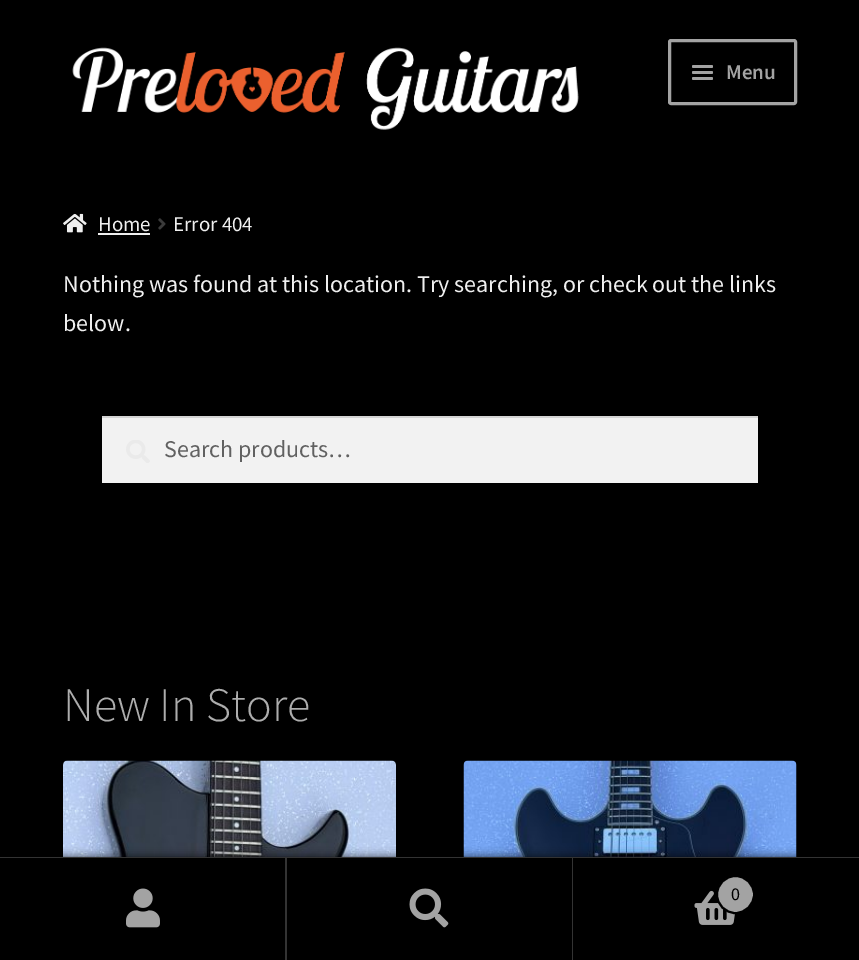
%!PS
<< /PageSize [859 960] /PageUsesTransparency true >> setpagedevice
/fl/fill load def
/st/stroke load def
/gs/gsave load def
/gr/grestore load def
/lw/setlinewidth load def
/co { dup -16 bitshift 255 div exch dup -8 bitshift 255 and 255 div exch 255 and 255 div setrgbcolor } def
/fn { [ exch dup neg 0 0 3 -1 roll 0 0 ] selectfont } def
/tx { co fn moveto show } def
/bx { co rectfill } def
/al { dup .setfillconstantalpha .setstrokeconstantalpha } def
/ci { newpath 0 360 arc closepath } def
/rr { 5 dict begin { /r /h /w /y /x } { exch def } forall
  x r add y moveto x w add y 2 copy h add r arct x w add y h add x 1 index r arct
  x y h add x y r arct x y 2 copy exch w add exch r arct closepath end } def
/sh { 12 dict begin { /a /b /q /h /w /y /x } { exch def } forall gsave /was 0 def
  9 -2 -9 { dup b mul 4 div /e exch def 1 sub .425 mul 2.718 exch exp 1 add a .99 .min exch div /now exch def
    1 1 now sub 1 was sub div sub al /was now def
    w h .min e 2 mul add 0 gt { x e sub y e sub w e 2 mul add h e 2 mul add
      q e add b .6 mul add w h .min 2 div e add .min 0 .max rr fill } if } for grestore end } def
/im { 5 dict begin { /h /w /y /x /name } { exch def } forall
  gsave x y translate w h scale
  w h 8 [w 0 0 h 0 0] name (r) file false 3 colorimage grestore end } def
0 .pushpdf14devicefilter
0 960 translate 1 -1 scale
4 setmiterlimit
0 0 859 960 16#000000 bx
(media/1.raw) 72 47 507 83 im
16#A3A3A3 co
3 lw
669.5 40.5 126 63 1.5 rr st
692 65 21 3 1.5 rr fl
692 71 21 3 1.5 rr fl
692 77 21 3 1.5 rr fl
(media/2.raw) 63 213 24 20 im
98 233 52 2 16#EFEFEF bx
(media/3.raw) 158 218 8 12 im
102 418 656 65 16#F2F2F2 bx
(media/4.raw) 126 440 24 23 im
102 416 656 2 16#D4D4D4 bx
(media/5.raw) 63 760 333 97 im
(media/6.raw) 463 760 334 97 im
16#000000 co
0 857 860 103 0 4.5 .7 sh
0 857 859 1 16#333333 bx
285 858 2 102 16#333333 bx
(media/7.raw) 126 888 34 40 im
0.2 al
572 858 1 102 16#FFFFFF bx
1 al
(media/8.raw) 409 888 40 40 im
(media/9.raw) 694 890 41 35 im
16#A3A3A3 co
735.5 894.5 18.5 ci gs fl gr
16#000000 co
2 lw
st
(Menu) 726 79 /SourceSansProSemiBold-SemiBold 21 16#A3A3A3 tx
(Home) 98 231 /SourceSansPro-Regular 21 16#EFEFEF tx
(Error 404) 173 231 /SourceSansPro-Regular 21 16#EFEFEF tx
(Nothing was found at this location. Try searching, or check out the links) 63 292 /SourceSansPro-Regular 24 16#EFEFEF tx
(below.) 63 331 /SourceSansPro-Regular 24 16#EFEFEF tx
(Search products…) 164 457 /SourceSansPro-Regular 24 16#616161 tx
(New In Store) 63 721 /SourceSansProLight-Light 48 16#ADADAD tx
(0) 731 900 /SourceSansPro-Regular 18 16#000000 tx
.poppdf14devicefilter showpage
